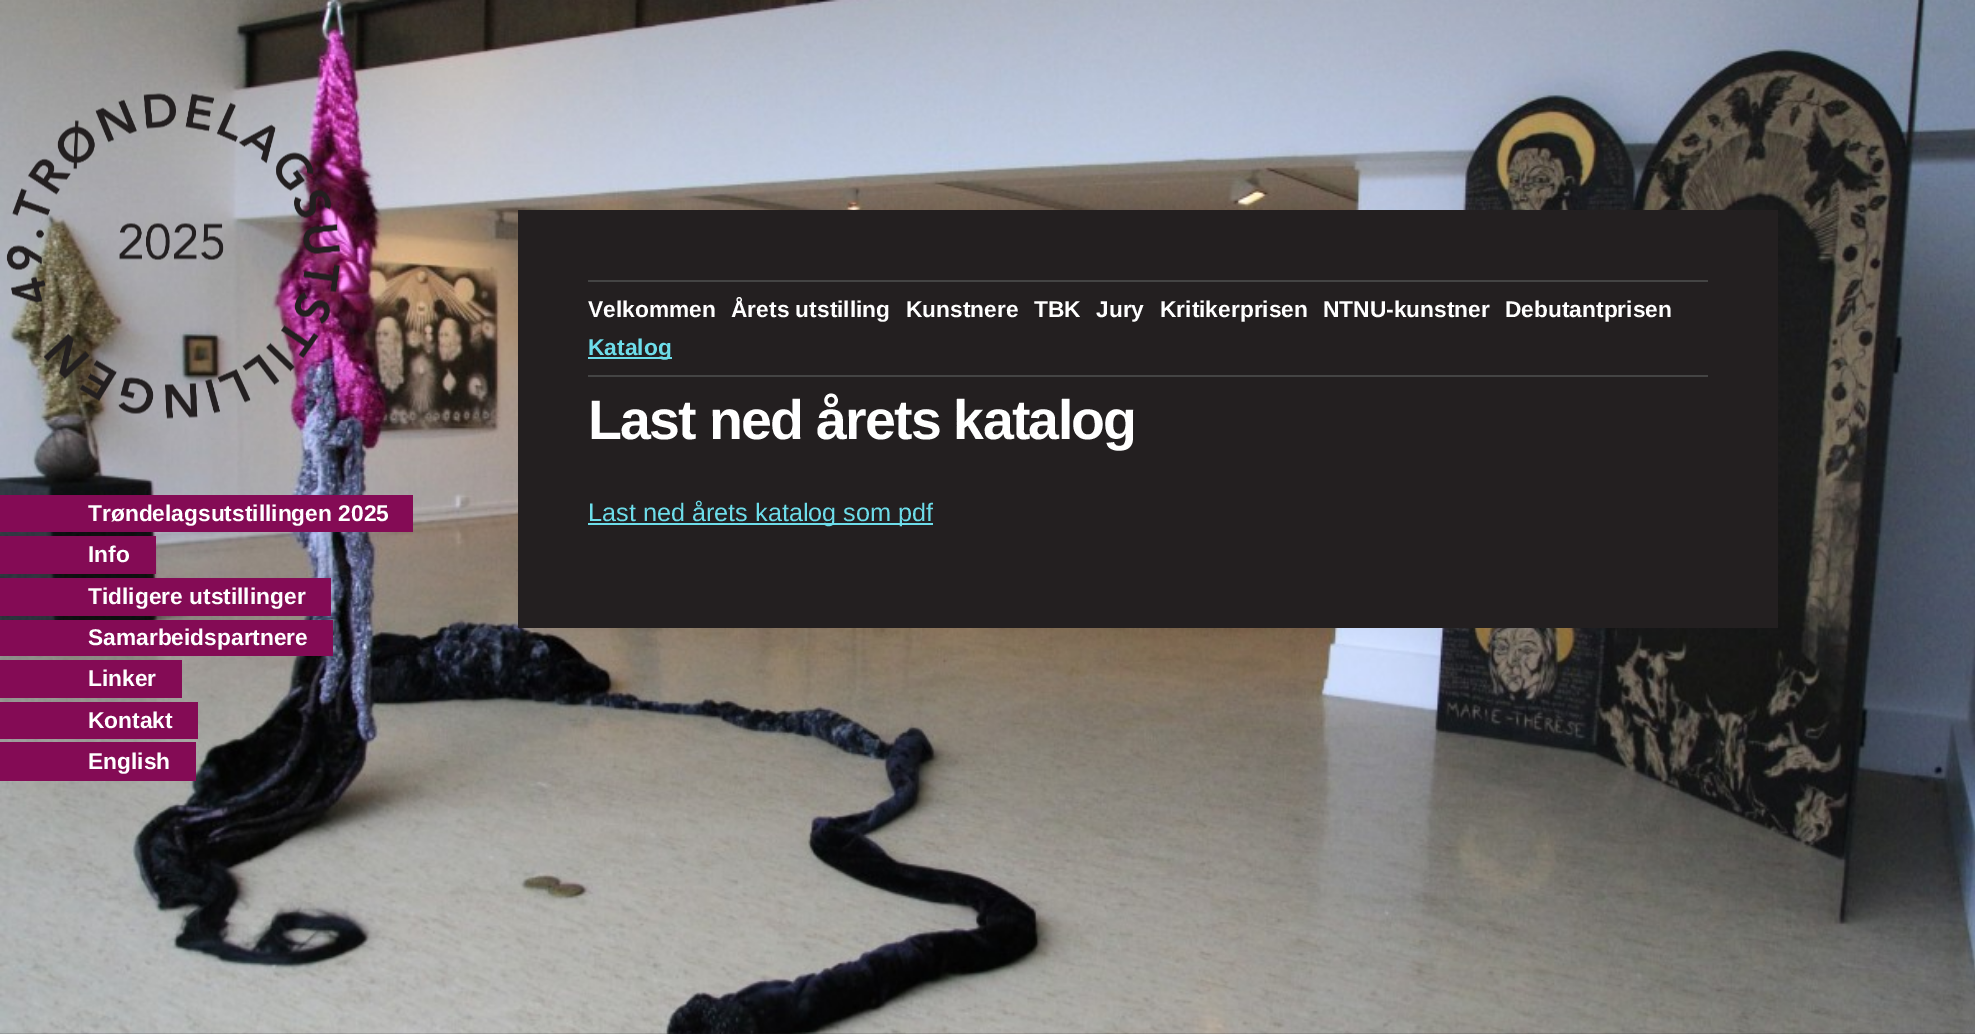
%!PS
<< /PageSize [1975 1034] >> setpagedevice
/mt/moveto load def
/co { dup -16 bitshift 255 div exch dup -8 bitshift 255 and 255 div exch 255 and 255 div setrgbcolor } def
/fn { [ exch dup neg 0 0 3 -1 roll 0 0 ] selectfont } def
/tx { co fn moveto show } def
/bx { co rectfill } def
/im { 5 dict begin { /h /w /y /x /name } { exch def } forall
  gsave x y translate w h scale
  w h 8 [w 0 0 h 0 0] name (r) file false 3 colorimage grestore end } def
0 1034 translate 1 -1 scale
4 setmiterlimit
0 0 1975 1034 16#FFFFFF bx
(media/1.raw) 0 0 1975 1034 im
518 210 1260 418 16#231F20 bx
588 280 1120 2 16#444444 bx
588 375 1120 2 16#444444 bx
588 357 84 2 16#6DDDEA bx
588 523 345 2 16#6DDDEA bx
(media/2.raw) 6 93 334 326 im
0 495 413 37 16#840B55 bx
0 536 156 38 16#840B55 bx
0 578 331 38 16#840B55 bx
0 620 333 36 16#840B55 bx
0 660 182 38 16#840B55 bx
0 702 198 37 16#840B55 bx
0 742 196 39 16#840B55 bx
(Velkommen) 588 317 /LiberationSans-Bold 22.75 16#FFFFFF tx
(Årets utstilling) 731 317 /LiberationSans-Bold 22.75 16#FFFFFF tx
(Kunstnere) 906 317 /LiberationSans-Bold 22.75 16#FFFFFF tx
(TBK) 1034 317 /LiberationSans-Bold 22.75 16#FFFFFF tx
(Jury) 1096 317 /LiberationSans-Bold 22.75 16#FFFFFF tx
(Kritikerprisen) 1160 317 /LiberationSans-Bold 22.75 16#FFFFFF tx
(NTNU-kunstner) 1323 317 /LiberationSans-Bold 22.75 16#FFFFFF tx
(Debutantprisen) 1505 317 /LiberationSans-Bold 22.75 16#FFFFFF tx
(Katalog) 588 355 /LiberationSans-Bold 22.75 16#6DDDEA tx
/LiberationSans-Bold 55.5 fn
16#FFFFFF co
588 439 mt -1.75 0 (Last ned årets katalog) ashow
(Last ned årets katalog som pdf) 588 521 /LiberationSans-Regular 25.25 16#6DDDEA tx
(Trøndelagsutstillingen 2025) 88 521 /LiberationSans-Bold 22.75 16#FFFFFF tx
(Info) 88 562 /LiberationSans-Bold 22.75 16#FFFFFF tx
(Tidligere utstillinger) 88 604 /LiberationSans-Bold 22.75 16#FFFFFF tx
(Samarbeidspartnere) 88 645 /LiberationSans-Bold 22.75 16#FFFFFF tx
(Linker) 88 686 /LiberationSans-Bold 22.75 16#FFFFFF tx
(Kontakt) 88 728 /LiberationSans-Bold 22.75 16#FFFFFF tx
(English) 88 769 /LiberationSans-Bold 22.75 16#FFFFFF tx
showpage
